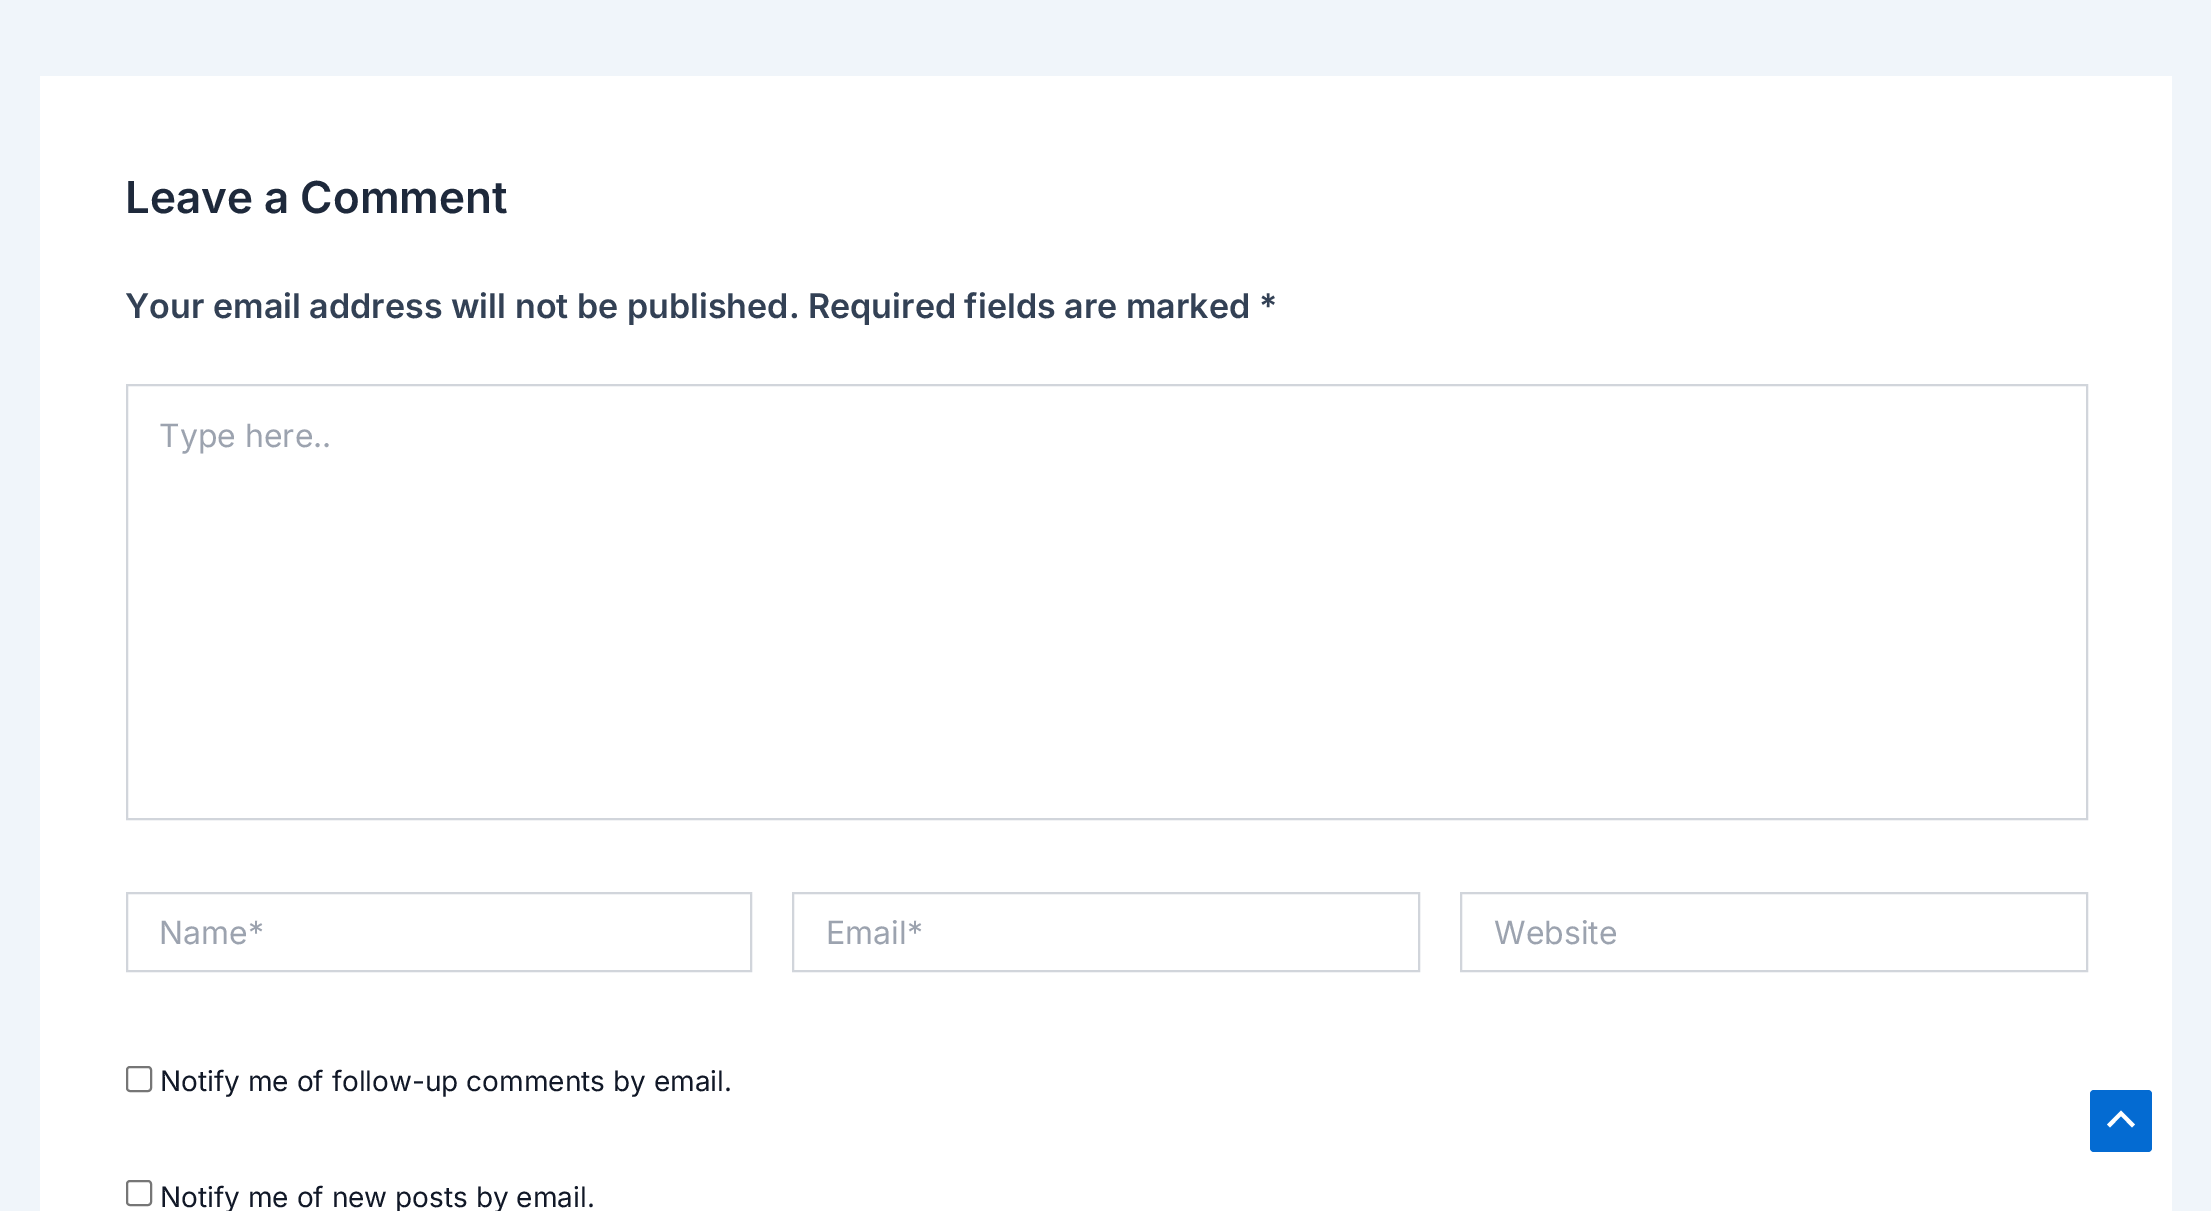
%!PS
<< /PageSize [2211 1211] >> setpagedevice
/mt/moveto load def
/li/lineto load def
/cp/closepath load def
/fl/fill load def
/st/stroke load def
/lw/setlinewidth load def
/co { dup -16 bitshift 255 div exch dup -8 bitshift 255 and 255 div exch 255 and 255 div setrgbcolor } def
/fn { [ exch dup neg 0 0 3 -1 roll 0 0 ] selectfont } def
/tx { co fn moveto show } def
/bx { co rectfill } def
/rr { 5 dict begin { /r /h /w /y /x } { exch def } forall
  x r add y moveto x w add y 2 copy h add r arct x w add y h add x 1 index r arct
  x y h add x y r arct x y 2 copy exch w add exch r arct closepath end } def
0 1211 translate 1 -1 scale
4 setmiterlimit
0 0 2211 1211 16#F0F5FA bx
40 76 2132 1135 16#FFFFFF bx
16#D1D5DB co
2 lw
127 385 1960 434 rectstroke
127 893 624 78 rectstroke
793 893 626 78 rectstroke
1461 893 626 78 rectstroke
16#767676 co
127 1067 24 24 3 rr st
127 1181 24 24 3 rr st
16#046BD2 co
2090 1090 62 62 4 rr fl
16#FFFFFF co
2135 1124.5 mt 2121 1110.5 li 2107 1124.5 li 2110 1127.5 li 2121 1116 li 2132 1127.5 li cp fl
(Leave a Comment) 125 213 /Inter-SemiBold 44 16#1E293B tx
(Your email address will not be published. Required fields are marked *) 125 318 /Inter-SemiBold 34 16#334155 tx
(Type here..) 159 447 /Inter-Regular 32 16#9CA3AF tx
(Name*) 159 944 /Inter-Regular 32 16#9CA3AF tx
(Email*) 826 944 /Inter-Regular 32 16#9CA3AF tx
(Website) 1494 944 /Inter-Regular 32 16#9CA3AF tx
(Notify me of follow-up comments by email.) 160 1091 /Inter-Regular 28 16#111827 tx
(Notify me of new posts by email.) 160 1207 /Inter-Regular 28 16#111827 tx
showpage
